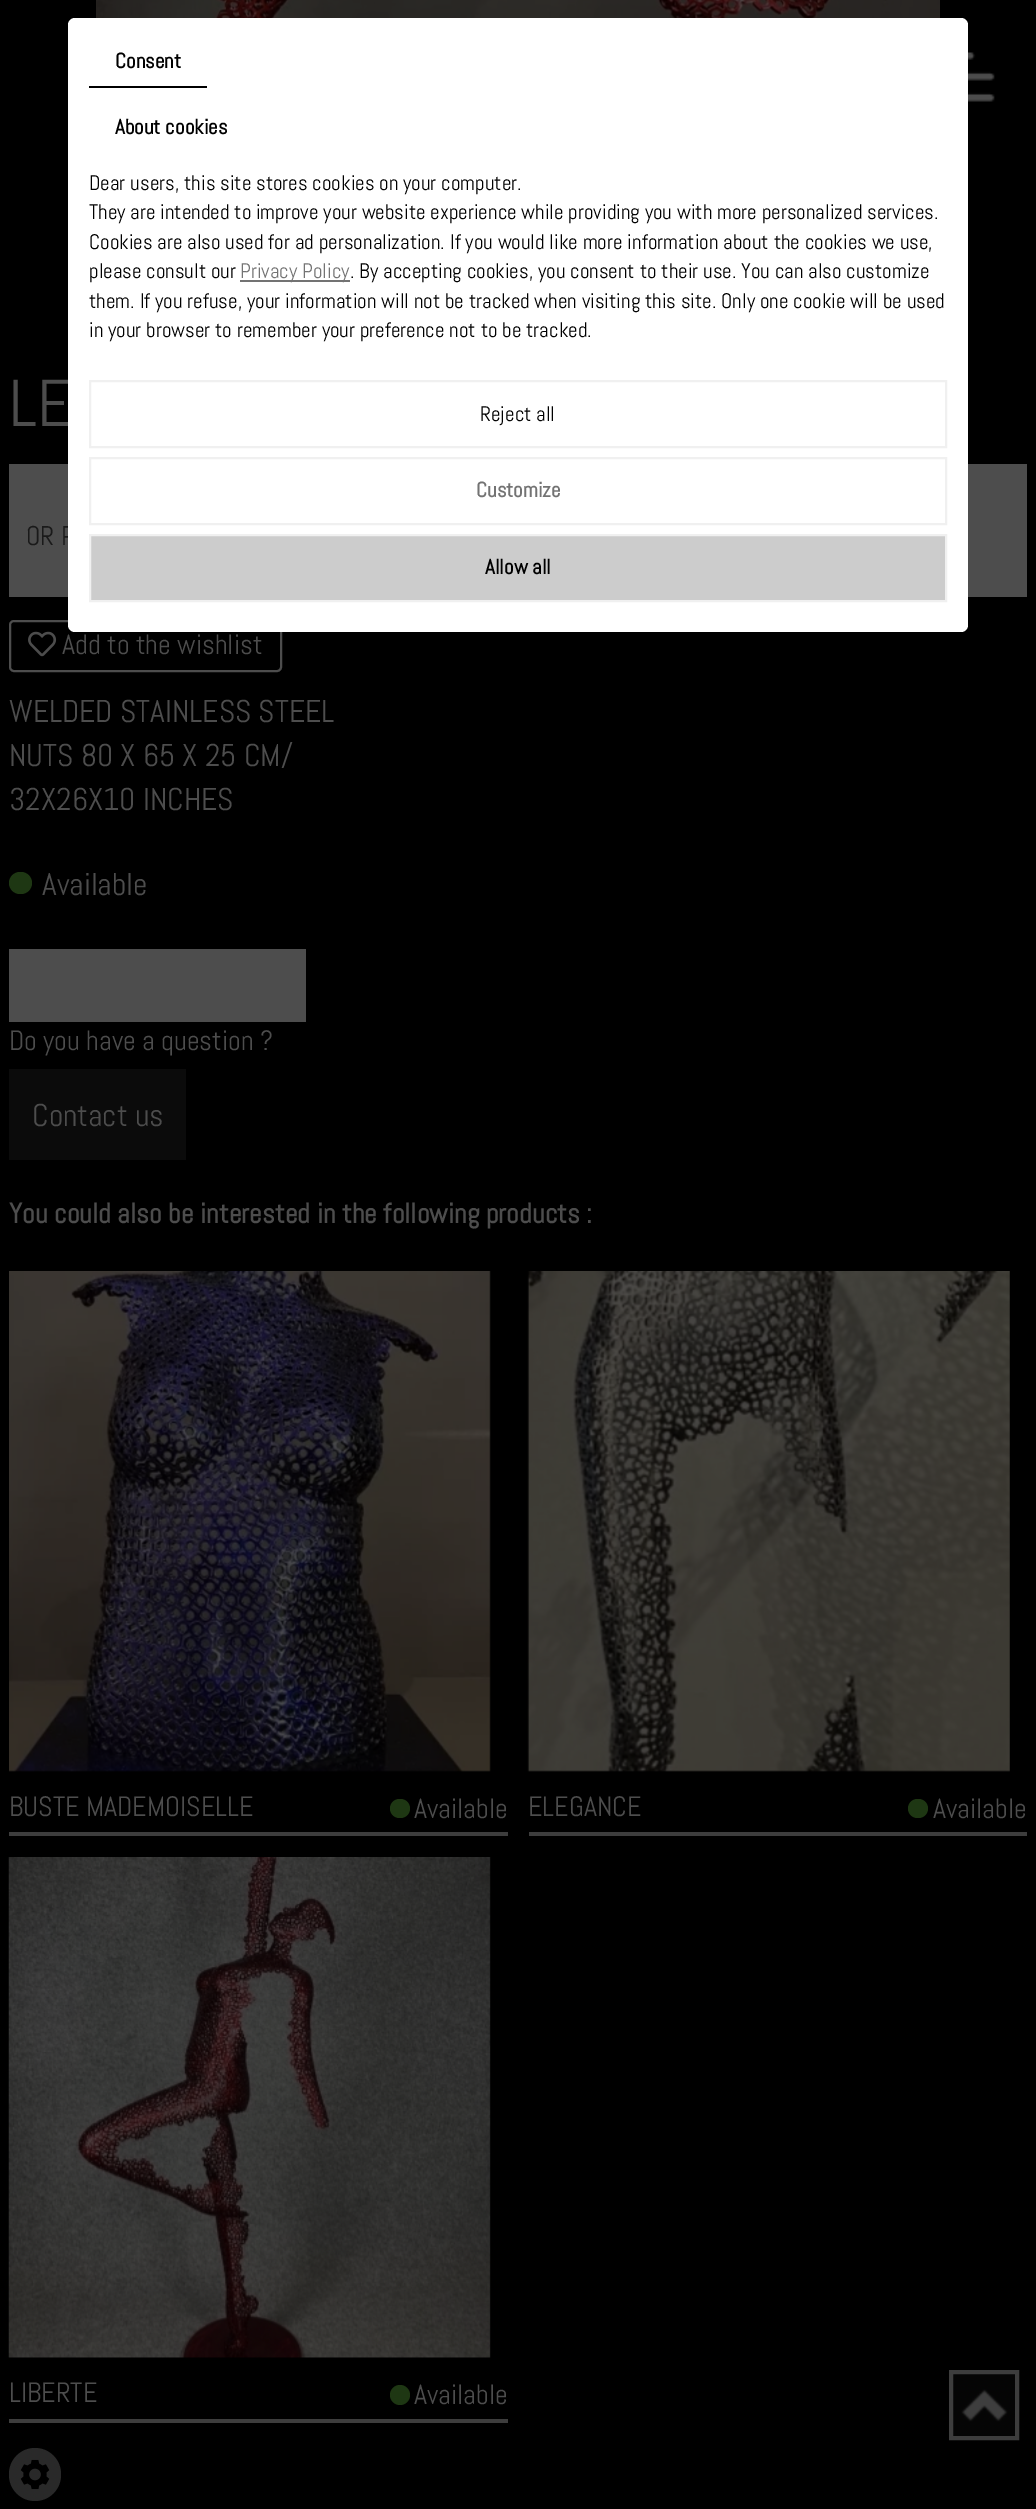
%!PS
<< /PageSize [1036 2509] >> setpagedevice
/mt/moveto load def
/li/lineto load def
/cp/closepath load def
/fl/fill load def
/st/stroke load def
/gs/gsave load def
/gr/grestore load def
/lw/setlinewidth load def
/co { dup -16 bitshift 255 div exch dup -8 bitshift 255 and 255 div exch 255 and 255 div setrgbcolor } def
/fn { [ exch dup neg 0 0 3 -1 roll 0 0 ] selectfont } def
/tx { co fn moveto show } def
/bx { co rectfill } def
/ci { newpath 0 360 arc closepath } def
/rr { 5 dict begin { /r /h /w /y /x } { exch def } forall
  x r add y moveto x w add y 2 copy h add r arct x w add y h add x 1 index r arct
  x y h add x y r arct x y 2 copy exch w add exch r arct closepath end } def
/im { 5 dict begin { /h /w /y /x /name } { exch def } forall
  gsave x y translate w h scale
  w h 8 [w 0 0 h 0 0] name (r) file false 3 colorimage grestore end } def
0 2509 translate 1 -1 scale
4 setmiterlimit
0 0 1036 2509 16#000000 bx
(media/1.raw) 968 49 27 56 im
(media/2.raw) 96 0 844 18 im
9 464 1018 133 16#4D4D4D bx
2 lw
10 621 271 50 4 rr st
(media/3.raw) 28 631 29 26 im
16#1E3713 co
9 872 23 22 11 rr fl
9 949 297 73 16#4D4D4D bx
9 1069 177 91 16#0B0B0B bx
9 1832 499 4 16#3D3D3D bx
(media/4.raw) 9 1271 482 501 im
16#1E3713 co
390 1799 20 19 9.5 rr fl
529 1832 498 4 16#3D3D3D bx
(media/5.raw) 527 1271 483 501 im
16#1E3713 co
908 1799 20 19 9.5 rr fl
9 2419 499 4 16#3D3D3D bx
(media/6.raw) 8 1857 483 501 im
16#1E3713 co
400 2395 10 ci fl
953 2374 62 62 16#050505 bx
(media/7.raw) 961 2389 47 33 im
16#3D3D3D co
4 lw
951 2372 66 66 rectstroke
16#292929 co
9 2448 52 53 26 rr fl
(media/8.raw) 20 2459 30 31 im
(LE) 9 426 /Abel-Regular 66 16#4D4D4D tx
(OR P) 26 545 /Abel-Regular 27 16#1A1A1A tx
16#FFFFFF co
68 18 900 614 7 rr fl
16#CCCCCC co
90 535 mt 946 535 li 946 601 li 90 601 li cp gs fl gr
16#F0F0F0 co
2 lw
st
(Allow all) 485 574 /Abel-Bold 21 16#000000 tx
16#F0F0F0 co
90 458 856 66 rectstroke
(Customize) 476 497 /Abel-Bold 21 16#737373 tx
16#F0F0F0 co
90 381 856 66 rectstroke
(Reject all) 480 421 /Abel-Regular 21 16#000000 tx
(in your browser to remember your preference not to be tracked.) 89 337 /Abel-Regular 21 16#000000 tx
(them. If you refuse, your information will not be tracked when visiting this site. Only one cookie will be used) 89 308 /Abel-Regular 21 16#000000 tx
(. By accepting cookies, you consent to their use. You can also customize) 350 278 /Abel-Regular 21 16#000000 tx
240 280 110 2 16#737373 bx
(Privacy Policy) 240 278 /Abel-Regular 21 16#737373 tx
(please consult our) 89 278 /Abel-Regular 21 16#000000 tx
(Cookies are also used for ad personalization. If you would like more information about the cookies we use,) 89 249 /Abel-Regular 21 16#000000 tx
(They are intended to improve your website experience while providing you with more personalized services.) 89 219 /Abel-Regular 21 16#000000 tx
(Dear users, this site stores cookies on your computer.) 89 190 /Abel-Regular 21 16#000000 tx
(About cookies) 115 134 /Abel-Bold 21 16#000000 tx
(Consent) 115 68 /Abel-Bold 21 16#000000 tx
89 86 118 2 16#000000 bx
(Add to the wishlist) 62 654 /Abel-Regular 28 16#4D4D4D tx
(WELDED STAINLESS STEEL) 9 722 /Abel-Regular 31.5 16#4D4D4D tx
(NUTS 80 X 65 X 25 CM/) 9 766 /Abel-Regular 31.5 16#4D4D4D tx
(32X26X10 INCHES) 9 810 /Abel-Regular 31.5 16#4D4D4D tx
(Available) 42 895 /Abel-Regular 31.5 16#4D4D4D tx
(Do you have a question ?) 9 1050 /Abel-Regular 28 16#4D4D4D tx
(Contact us) 32 1126 /Abel-Regular 31.5 16#4D4D4D tx
(You could also be interested in the following products :) 9 1223 /Abel-Bold 28 16#4D4D4D tx
(BUSTE MADEMOISELLE) 9 1816 /Abel-Regular 28 16#4D4D4D tx
(Available) 414 1818 /Abel-Regular 28 16#4D4D4D tx
(ELEGANCE) 528 1816 /Abel-Regular 28 16#4D4D4D tx
(Available) 933 1818 /Abel-Regular 28 16#4D4D4D tx
(LIBERTE) 9 2402 /Abel-Regular 28 16#4D4D4D tx
(Available) 414 2404 /Abel-Regular 28 16#4D4D4D tx
showpage
